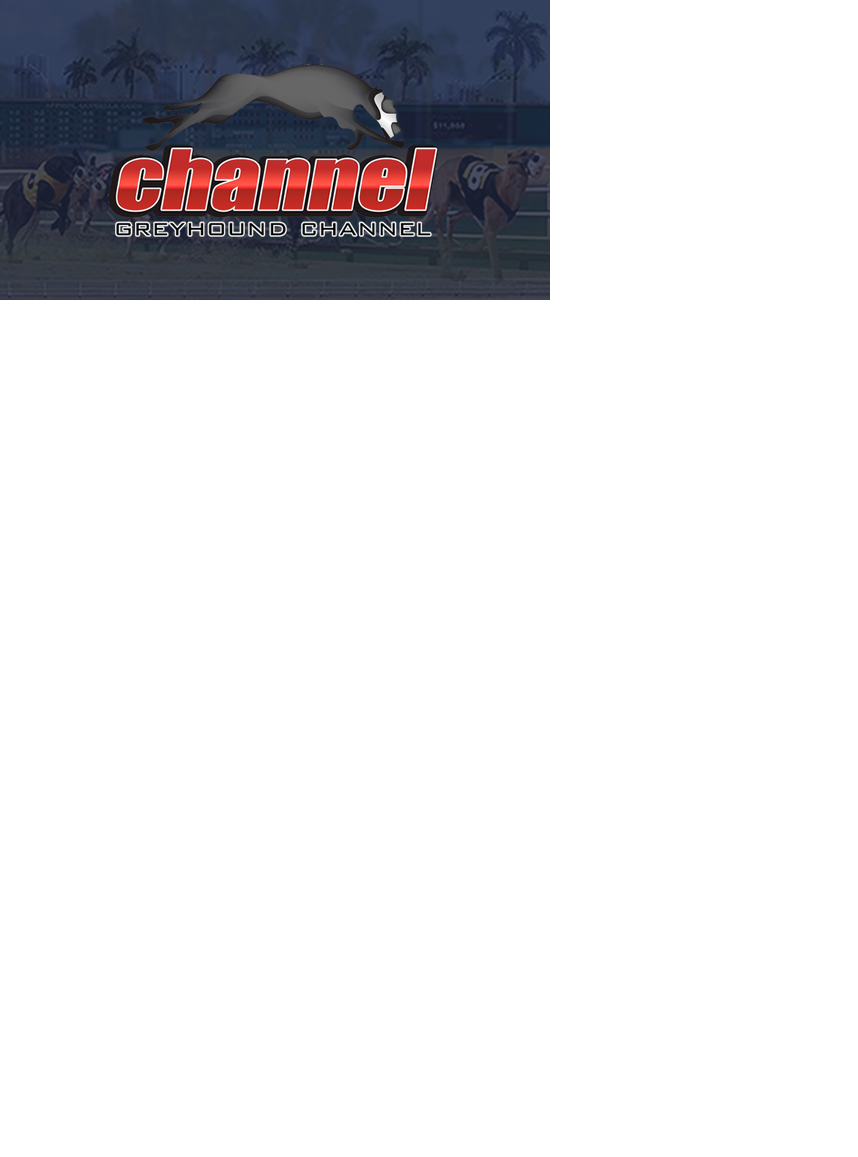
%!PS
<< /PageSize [858 1157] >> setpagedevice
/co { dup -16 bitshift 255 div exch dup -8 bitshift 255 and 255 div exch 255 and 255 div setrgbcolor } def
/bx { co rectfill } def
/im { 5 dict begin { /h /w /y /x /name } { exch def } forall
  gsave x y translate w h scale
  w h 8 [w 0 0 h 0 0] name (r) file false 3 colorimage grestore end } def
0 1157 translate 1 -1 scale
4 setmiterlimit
0 0 858 1157 16#FFFFFF bx
(media/1.raw) 0 0 550 300 im
showpage
